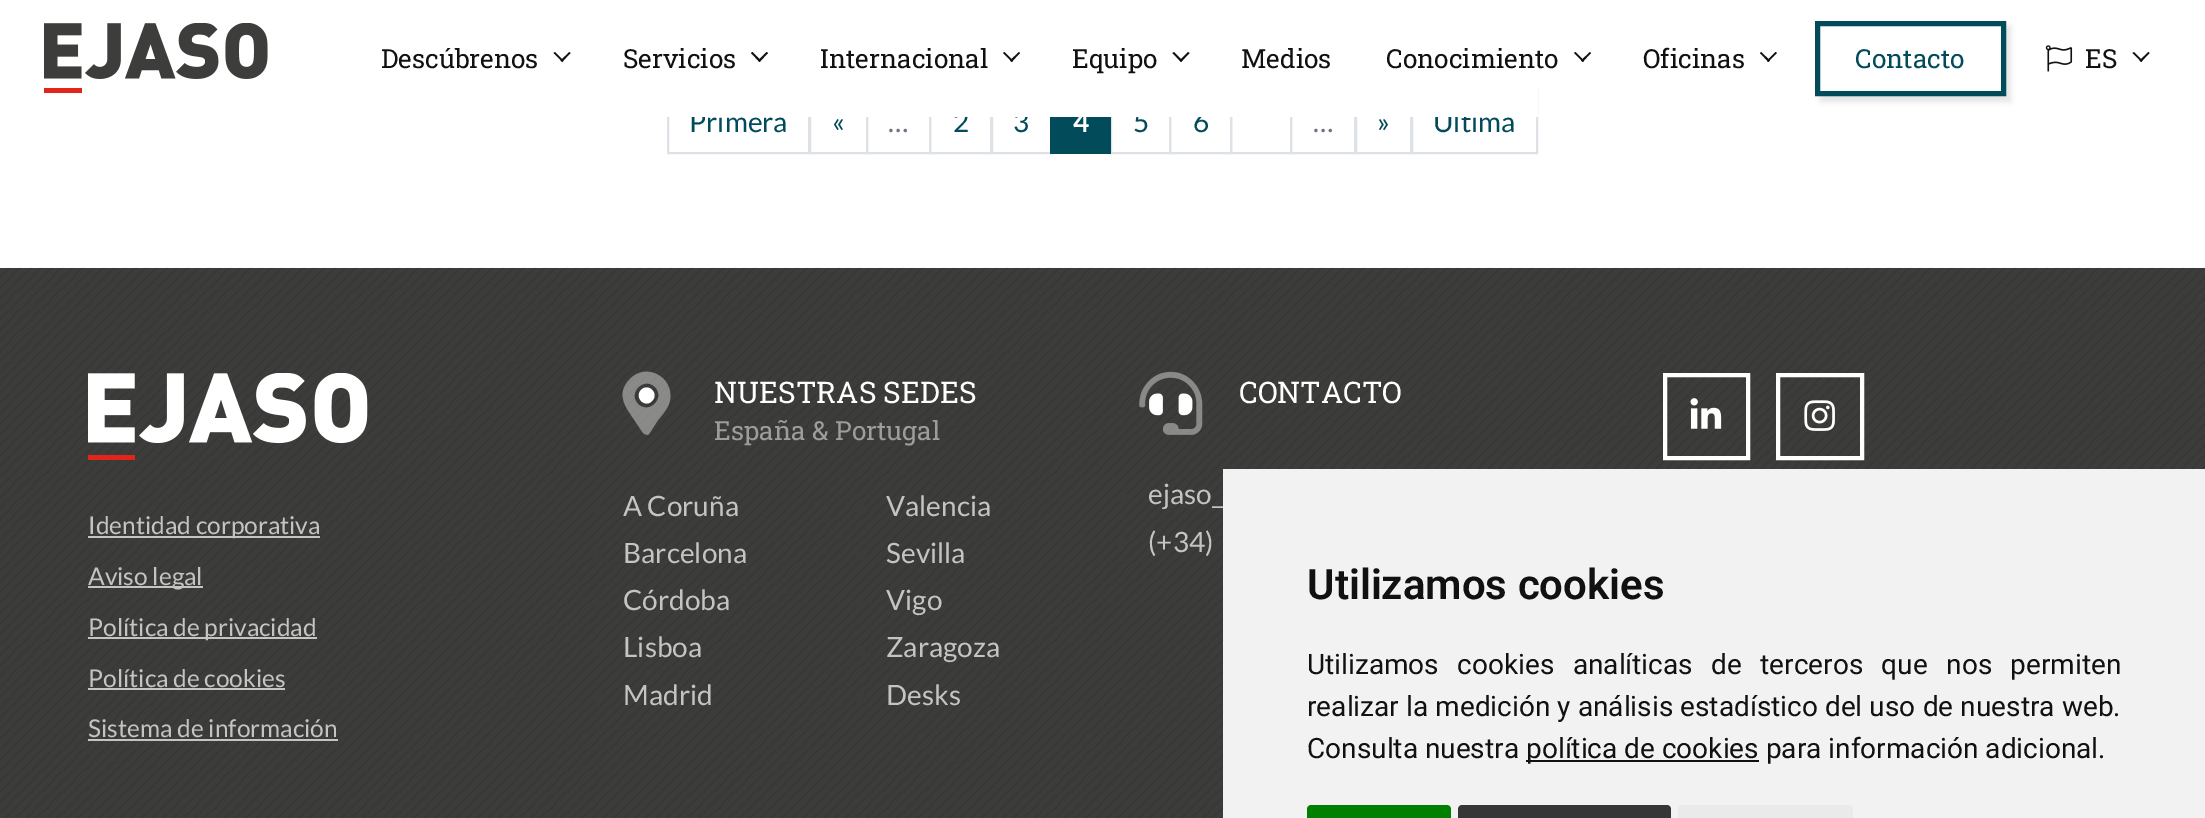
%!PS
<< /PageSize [2205 818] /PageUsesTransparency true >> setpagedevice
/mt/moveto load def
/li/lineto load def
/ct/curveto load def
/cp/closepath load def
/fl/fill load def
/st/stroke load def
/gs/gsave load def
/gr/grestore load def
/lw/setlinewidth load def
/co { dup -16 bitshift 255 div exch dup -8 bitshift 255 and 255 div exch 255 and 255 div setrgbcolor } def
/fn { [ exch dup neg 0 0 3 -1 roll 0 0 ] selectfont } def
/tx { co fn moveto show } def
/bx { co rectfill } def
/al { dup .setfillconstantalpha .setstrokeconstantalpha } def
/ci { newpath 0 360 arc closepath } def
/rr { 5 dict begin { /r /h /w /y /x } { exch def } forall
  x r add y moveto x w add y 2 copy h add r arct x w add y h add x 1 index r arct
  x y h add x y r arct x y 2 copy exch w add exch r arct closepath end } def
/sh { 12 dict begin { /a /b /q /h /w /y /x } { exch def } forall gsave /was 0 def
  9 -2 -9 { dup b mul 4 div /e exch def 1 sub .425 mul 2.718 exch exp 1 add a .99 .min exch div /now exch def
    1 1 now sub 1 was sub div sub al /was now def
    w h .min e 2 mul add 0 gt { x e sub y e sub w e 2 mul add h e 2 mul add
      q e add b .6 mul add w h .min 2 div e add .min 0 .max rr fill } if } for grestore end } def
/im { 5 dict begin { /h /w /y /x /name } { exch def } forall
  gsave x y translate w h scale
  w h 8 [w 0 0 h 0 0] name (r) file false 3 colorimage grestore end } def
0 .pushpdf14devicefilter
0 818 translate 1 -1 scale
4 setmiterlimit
0 0 2205 818 16#FFFFFF bx
(media/1.raw) 44 23 224 70 im
16#111111 co
555 52 mt 563.5 60.5 li 562.5 62 li 553.5 53 li cp fl
560.5 60.5 mt 569.5 52 li 570.5 53 li 562 62 li cp fl
752.5 52 mt 761 60.5 li 759.5 62 li 751 53 li cp fl
758 60.5 mt 766.5 52 li 768 53 li 759.5 62 li cp fl
1004.5 52 mt 1013 60.5 li 1012 62 li 1003 53 li cp fl
1010 60.5 mt 1019 52 li 1020 53 li 1011.5 62 li cp fl
1174 52 mt 1182.5 60.5 li 1181 62 li 1172.5 53 li cp fl
1179.5 60.5 mt 1188 52 li 1189.5 53 li 1181 62 li cp fl
1575.5 52 mt 1584 60.5 li 1583 62 li 1574 53 li cp fl
1581 60.5 mt 1590 52 li 1591 53 li 1582.5 62 li cp fl
1761 52 mt 1770 60.5 li 1768.5 62 li 1760 53 li cp fl
1767 60.5 mt 1775.5 52 li 1777 53 li 1768 62 li cp fl
16#000000 co
1820 26 191 76 0 2.5 .09 sh
16#FFFFFF co
1817.5 23.5 mt 2003.5 23.5 li 2003.5 93.5 li 1817.5 93.5 li cp gs fl gr
16#014B5B co
5 lw
st
(media/2.raw) 2045 45 28 27 im
16#111111 co
2134 52 mt 2142.5 60.5 li 2141.5 62 li 2132.5 53 li cp fl
2139.5 60.5 mt 2148.5 52 li 2149.5 53 li 2141 62 li cp fl
16#DEE2E6 co
2 lw
668 89 141 64 rectstroke
810 89 57 64 rectstroke
867 89 63 64 rectstroke
930 89 61 64 rectstroke
992 89 59 64 rectstroke
1111 89 59 64 rectstroke
1050 117 61 37 16#014B5B bx
16#DEE2E6 co
1170 89 61 64 rectstroke
1231 89 60 64 rectstroke
1291 89 64 64 rectstroke
1356 89 55 64 rectstroke
1412 89 125 64 rectstroke
0 268 2205 550 16#3C3C3B bx
(media/3.raw) 0 267 2205 551 im
16#FFFFFF co
652 401 mt 645 408.5 634 397.5 641 390 ct 648.5 382.5 659.5 393.5 652 401 ct cp fl
0.4 al
630 379 mt 646 362 674 377 670 400 ct 669 407 663 414 658 420 ct 649 434 li 647 436 645 434 643 433 ct 633 418 li 627 409 621 401 623 391 ct 624 386 627 382 630 379 ct cp 638 404 mt 649 415 666 398 655 387 ct 644 376 627 393 638 404 ct cp fl
1 al
16#3C3C3B co
597.5 508.5 4.5 ci fl
597.5 555.5 4.5 ci fl
593 599 9 8 4 rr fl
597.5 650.5 4.5 ci fl
597.5 697.5 4.5 ci fl
860.5 508.5 4.5 ci fl
860.5 555.5 4.5 ci fl
856 599 9 8 4 rr fl
860.5 650.5 4.5 ci fl
860.5 697.5 4.5 ci fl
(media/5.raw) 1149 393 44 23 im
(media/4.raw) 1139 371 64 64 im
1122.5 496.5 4.5 ci fl
1122.5 543.5 4.5 ci fl
16#FFFFFF co
4 lw
1665 375 83 83 rectstroke
(media/6.raw) 1690 398 32 31 im
1778 375 84 83 rectstroke
(media/7.raw) 1804 400 31 31 im
(media/8.raw) 88 373 280 87 im
0.7 al
88 536 232 2 16#FFFFFF bx
88 586 115 2 16#FFFFFF bx
88 637 229 2 16#FFFFFF bx
88 688 197 2 16#FFFFFF bx
88 739 250 2 16#FFFFFF bx
1 al
1223 469 982 349 16#F2F2F2 bx
1526 760 233 2 16#111111 bx
16#008000 co
1311 805 mt 1447 805 li 1449 805 1451 807 1451 809 ct 1451 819 li 1307 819 li 1307 809 li 1307 807 1309 805 1311 805 ct cp fl
16#363636 co
1462 805 mt 1667 805 li 1669 805 1671 807 1671 809 ct 1671 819 li 1458 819 li 1458 809 li 1458 807 1460 805 1462 805 ct cp fl
16#EAEAEA co
1682 805 mt 1849 805 li 1851 805 1853 807 1853 809 ct 1853 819 li 1678 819 li 1678 809 li 1678 807 1680 805 1682 805 ct cp fl
(Descúbrenos) 381 68 /RobotoSlab-Regular 26.25 16#111111 tx
(Servicios) 623 68 /RobotoSlab-Regular 26.25 16#111111 tx
(Internacional) 820 68 /RobotoSlab-Regular 26.25 16#111111 tx
(Equipo) 1072 68 /RobotoSlab-Regular 26.25 16#111111 tx
(Medios) 1241 68 /RobotoSlab-Regular 26.25 16#111111 tx
(Conocimiento) 1386 68 /RobotoSlab-Regular 26.25 16#111111 tx
(Oficinas) 1643 68 /RobotoSlab-Regular 26.25 16#111111 tx
(Contacto) 1855 68 /RobotoSlab-Regular 26.25 16#014B5B tx
(ES) 2085 68 /RobotoSlab-Regular 26.25 16#111111 tx
(Primera) 689 132 /Lato-Regular 28 16#014B5B tx
(«) 832 132 /Lato-Regular 28 16#014B5B tx
(…) 888 132 /Lato-Regular 28 16#6C757D tx
(2) 953 132 /Lato-Regular 28 16#014B5B tx
(3) 1013 132 /Lato-Regular 28 16#014B5B tx
(4) 1073 132 /Lato-Bold 28 16#FFFFFF tx
(5) 1133 132 /Lato-Regular 28 16#014B5B tx
(6) 1193 132 /Lato-Regular 28 16#014B5B tx
(…) 1313 132 /Lato-Regular 28 16#6C757D tx
(») 1377 132 /Lato-Regular 28 16#014B5B tx
(Última) 1433 132 /Lato-Regular 28 16#014B5B tx
667 88 871 29 16#FFFFFF bx
(NUESTRAS SEDES) 714 403 /RobotoSlab-Regular 29.75 16#FFFFFF tx
(España & Portugal) 714 440 /RobotoSlab-Regular 26.25 16#9D9D9C tx
(A Coruña) 623 516 /Lato-Regular 28 16#C4C4C4 tx
(Barcelona) 623 563 /Lato-Regular 28 16#C4C4C4 tx
(Córdoba) 623 610 /Lato-Regular 28 16#C4C4C4 tx
(Lisboa) 623 657 /Lato-Regular 28 16#C4C4C4 tx
(Madrid) 623 705 /Lato-Regular 28 16#C4C4C4 tx
(Valencia) 886 516 /Lato-Regular 28 16#C4C4C4 tx
(Sevilla) 886 563 /Lato-Regular 28 16#C4C4C4 tx
(Vigo) 886 610 /Lato-Regular 28 16#C4C4C4 tx
(Zaragoza) 886 657 /Lato-Regular 28 16#C4C4C4 tx
(Desks) 886 705 /Lato-Regular 28 16#C4C4C4 tx
(CONTACTO) 1239 403 /RobotoSlab-Regular 29.75 16#FFFFFF tx
(ejaso_) 1148 504 /Lato-Regular 28 16#C4C4C4 tx
(\(+34\)) 1148 552 /Lato-Regular 28 16#C4C4C4 tx
(Identidad corporativa) 88 534 /Lato-Regular 24.5 16#C4C4C4 tx
(Aviso legal) 88 585 /Lato-Regular 24.5 16#C4C4C4 tx
(Política de privacidad) 88 636 /Lato-Regular 24.5 16#C4C4C4 tx
(Política de cookies) 88 687 /Lato-Regular 24.5 16#C4C4C4 tx
(Sistema de información) 88 737 /Lato-Regular 24.5 16#C4C4C4 tx
(Utilizamos cookies) 1307 599 /Roboto-SemiBold 42 16#111111 tx
/Roboto-Regular 28 fn
1307 674 mt 11.5 0 32 (Utilizamos cookies analíticas de terceros que nos permiten) widthshow
1307 716 mt .25 0 32 (realizar la medición y análisis estadístico del uso de nuestra web.) widthshow
(Consulta nuestra) 1307 758 /Roboto-Regular 28 16#111111 tx
(política de cookies para información adicional.) 1526 758 /Roboto-Regular 28 16#111111 tx
.poppdf14devicefilter showpage
